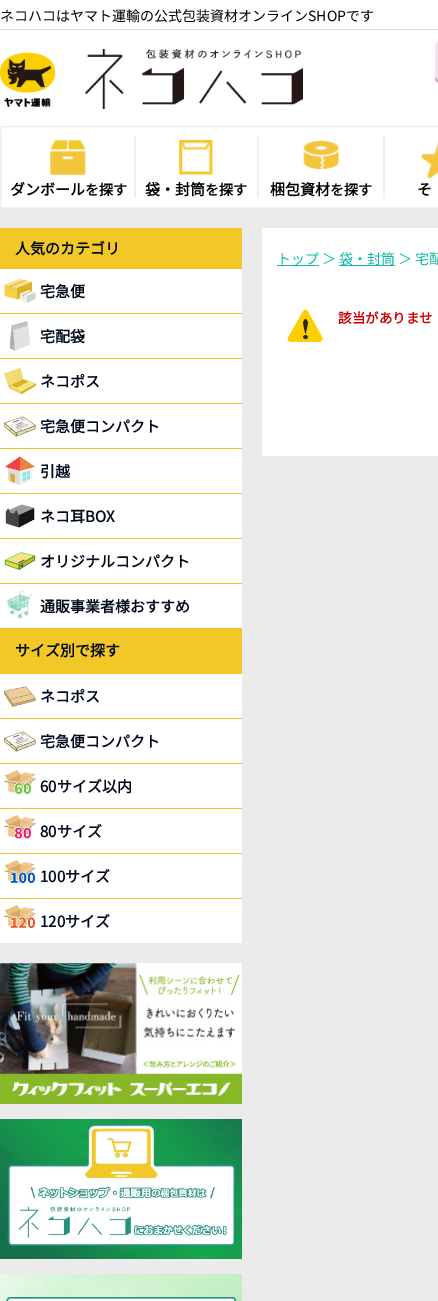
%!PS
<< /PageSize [438 1301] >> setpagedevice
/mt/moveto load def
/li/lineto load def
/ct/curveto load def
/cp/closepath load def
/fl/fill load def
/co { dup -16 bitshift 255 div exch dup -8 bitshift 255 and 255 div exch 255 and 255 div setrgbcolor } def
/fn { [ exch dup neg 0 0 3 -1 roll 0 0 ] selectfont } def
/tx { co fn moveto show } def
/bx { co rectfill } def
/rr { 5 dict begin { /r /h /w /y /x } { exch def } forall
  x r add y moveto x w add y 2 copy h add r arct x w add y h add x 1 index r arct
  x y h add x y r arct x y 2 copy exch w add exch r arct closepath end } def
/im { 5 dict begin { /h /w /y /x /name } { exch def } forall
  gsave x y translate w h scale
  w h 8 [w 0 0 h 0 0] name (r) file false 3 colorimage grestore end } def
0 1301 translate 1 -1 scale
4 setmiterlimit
0 0 438 1301 16#EBEBEB bx
0 0 438 207 16#FFFFFF bx
0 29 438 1 16#DEDEDE bx
16#EFEFEF co
.5 126.5 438 81 rectstroke
(media/1.raw) 0 52 55 56 im
(media/2.raw) 85 49 218 60 im
16#CCA6BC co
435 75 mt 435 78 li 435 81 437 83 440 83 ct 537 83 li 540 83 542 81 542 78 ct 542 75 li 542 78 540 80 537 80 ct 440 80 li 437 80 435 78 435 75 ct cp fl
16#F6E3EE co
435 41 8 39 5 rr fl
(media/3.raw) 50 140 36 35 im
134 136 2 62 16#EFEFEF bx
1 136 1 62 16#EFEFEF bx
(media/4.raw) 179 140 34 35 im
257 136 2 62 16#EFEFEF bx
(media/5.raw) 303 140 36 29 im
383 136 2 62 16#EFEFEF bx
(media/6.raw) 421 142 17 36 im
0 269 242 674 16#FFFFFF bx
0 228 242 41 16#F2C828 bx
(media/7.raw) 4 279 32 24 im
(media/8.raw) 9 321 22 30 im
0 313 242 1 16#F2C828 bx
(media/9.raw) 4 367 32 28 im
0 358 242 1 16#F2C828 bx
(media/10.raw) 4 416 32 21 im
0 403 242 1 16#F2C828 bx
(media/11.raw) 5 456 30 29 im
0 448 242 1 16#F2C828 bx
(media/12.raw) 5 504 30 24 im
0 493 242 1 16#F2C828 bx
(media/13.raw) 4 552 32 18 im
0 538 242 1 16#F2C828 bx
(media/14.raw) 6 591 27 28 im
0 583 242 1 16#F2C828 bx
0 628 242 46 16#F2C828 bx
(media/15.raw) 4 686 32 21 im
(media/10.raw) 4 731 32 21 im
0 718 242 1 16#F2C828 bx
(media/16.raw) 4 770 32 25 im
0 763 242 1 16#F2C828 bx
(media/17.raw) 4 815 32 24 im
0 808 242 1 16#F2C828 bx
(media/18.raw) 4 860 32 24 im
0 853 242 1 16#F2C828 bx
(media/19.raw) 4 905 32 24 im
0 898 242 1 16#F2C828 bx
(media/20.raw) 0 963 242 141 im
(media/21.raw) 0 1119 242 140 im
(media/22.raw) 0 1274 242 27 im
262 228 176 228 16#FFFFFF bx
277 265 42 1 16#0EBCA4 bx
339 265 56 1 16#0EBCA4 bx
(media/23.raw) 287 309 36 33 im
(ネコハコはヤマト運輸の公式包装資材オンラインSHOPです) 0 21 /NotoSansJP-Thin 14 16#000000 tx
(ダンボール) 10 195 /NotoSansJP-Bold 15 16#000000 tx
(を探す) 85 195 /NotoSansJP-Bold 14 16#000000 tx
(袋・封筒) 145 195 /NotoSansJP-Bold 15 16#000000 tx
(を探す) 205 195 /NotoSansJP-Bold 14 16#000000 tx
(梱包資材) 270 195 /NotoSansJP-Bold 15 16#000000 tx
(を探す) 330 195 /NotoSansJP-Bold 14 16#000000 tx
(そ) 417 195 /NotoSansJP-Bold 15 16#000000 tx
(人気のカテゴリ) 15 254 /NotoSansJP-Bold 15 16#00091C tx
(宅急便) 40 297 /NotoSansJP-Bold 15 16#00091C tx
(宅配袋) 40 342 /NotoSansJP-Bold 15 16#00091C tx
(ネコポス) 40 387 /NotoSansJP-Bold 15 16#00091C tx
(宅急便コンパクト) 40 432 /NotoSansJP-Bold 15 16#00091C tx
(引越) 40 477 /NotoSansJP-Bold 15 16#00091C tx
(ネコ耳BOX) 40 522 /NotoSansJP-Bold 15 16#00091C tx
(オリジナルコンパクト) 40 567 /NotoSansJP-Bold 15 16#00091C tx
(通販事業者様おすすめ) 40 612 /NotoSansJP-Bold 15 16#00091C tx
(サイズ別で探す) 15 656 /NotoSansJP-Bold 15 16#00091C tx
(ネコポス) 40 702 /NotoSansJP-Bold 15 16#00091C tx
(宅急便コンパクト) 40 747 /NotoSansJP-Bold 15 16#00091C tx
(60サイズ以内) 40 792 /NotoSansJP-Bold 15 16#00091C tx
(80サイズ) 40 837 /NotoSansJP-Bold 15 16#00091C tx
(100サイズ) 40 882 /NotoSansJP-Bold 15 16#00091C tx
(120サイズ) 40 927 /NotoSansJP-Bold 15 16#00091C tx
(トップ ＞) 277 264 /NotoSansJP-Thin 14 16#0EBCA4 tx
(袋・封筒 ＞ 宅配) 339 264 /NotoSansJP-Thin 14 16#0EBCA4 tx
(該当がありませ) 338 323 /NotoSansJP-Bold 13.5 16#CC0000 tx
showpage
